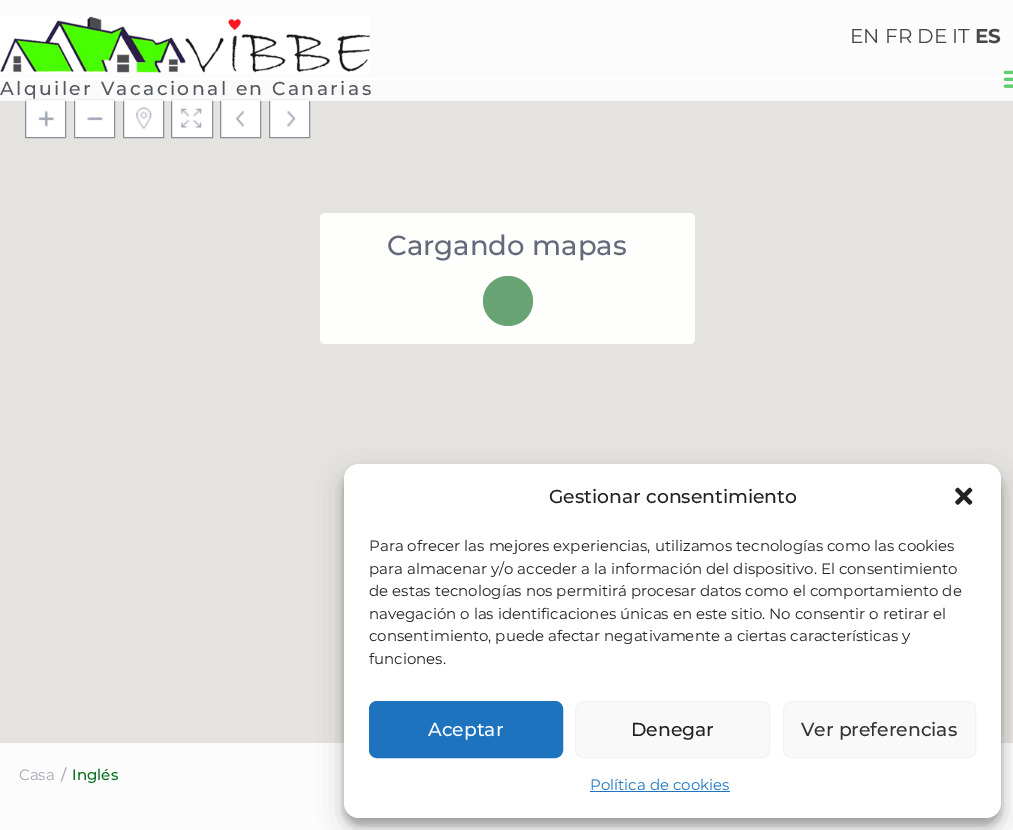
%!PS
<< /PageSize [1013 830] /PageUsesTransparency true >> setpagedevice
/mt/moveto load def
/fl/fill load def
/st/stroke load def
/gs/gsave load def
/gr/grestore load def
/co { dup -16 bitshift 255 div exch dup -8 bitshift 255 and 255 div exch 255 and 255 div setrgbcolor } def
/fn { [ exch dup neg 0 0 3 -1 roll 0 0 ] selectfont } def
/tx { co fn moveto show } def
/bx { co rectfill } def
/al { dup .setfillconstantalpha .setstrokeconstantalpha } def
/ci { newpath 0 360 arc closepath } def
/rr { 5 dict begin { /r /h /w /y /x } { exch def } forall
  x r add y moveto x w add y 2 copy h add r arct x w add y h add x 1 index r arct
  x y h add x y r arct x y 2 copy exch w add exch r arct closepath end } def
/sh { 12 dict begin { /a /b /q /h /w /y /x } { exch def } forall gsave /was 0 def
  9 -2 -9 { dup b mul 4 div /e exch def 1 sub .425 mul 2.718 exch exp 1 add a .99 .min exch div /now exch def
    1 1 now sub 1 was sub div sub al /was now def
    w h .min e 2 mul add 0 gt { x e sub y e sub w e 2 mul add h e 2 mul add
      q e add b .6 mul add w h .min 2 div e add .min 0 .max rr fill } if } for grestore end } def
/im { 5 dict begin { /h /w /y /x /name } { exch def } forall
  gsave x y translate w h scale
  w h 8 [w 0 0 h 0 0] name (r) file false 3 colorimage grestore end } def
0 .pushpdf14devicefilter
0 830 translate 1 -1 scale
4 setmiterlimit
0 0 1013 830 16#FCFCFC bx
0 80 1013 663 16#E5E3DF bx
26 100 39 37 16#FFFFFF bx
(media/3.raw) 38 111 16 16 im
16#8A8F9A co
25.5 99.5 40 38 rectstroke
75 100 39 37 16#FFFFFF bx
(media/4.raw) 87 117 16 4 im
16#8A8F9A co
74.5 99.5 40 38 rectstroke
124 100 39 37 16#FFFFFF bx
(media/5.raw) 136 107 16 22 im
16#8A8F9A co
123.5 99.5 40 38 rectstroke
172 100 40 37 16#FFFFFF bx
(media/6.raw) 181 108 21 20 im
16#8A8F9A co
171.5 99.5 41 38 rectstroke
221 100 39 37 16#FFFFFF bx
(media/7.raw) 236 111 8 16 im
16#8A8F9A co
220.5 99.5 40 38 rectstroke
270 100 39 37 16#FFFFFF bx
(media/8.raw) 287 111 9 16 im
16#8A8F9A co
269.5 99.5 40 38 rectstroke
0.84 al
0 80 1013 21 16#FFFFFF bx
1 al
(media/1.raw) 0 16 370 57 im
0 78 1005 2 16#FFFFFF bx
(media/2.raw) 1003 70 10 18 im
16#FEFEFD co
320 213 375 131 5 rr fl
16#68A373 co
508 301 25 ci fl
16#000000 co
344 471 657 354 15 4 .23 sh
344 476 657 354 15 12.5 .19 sh
16#FFFFFF co
344 464 657 354 15 rr fl
(media/9.raw) 955 487 18 18 im
16#1E73BE co
369.5 701.5 193 56 7.5 rr gs fl gr
st
16#F9F9F9 co
575.5 701.5 194 56 7.5 rr gs fl gr
16#F2F2F2 co
st
16#F9F9F9 co
783.5 701.5 192 56 7.5 rr gs fl gr
16#F2F2F2 co
st
590 791 140 1 16#1E73BE bx
(EN FR DE IT) 850 43 /Montserrat-Regular 20 16#484848 tx
(ES) 975 43 /Montserrat-Bold 20 16#484848 tx
/Montserrat-Medium 18.75 fn
16#54595F co
0 95 mt 2.4 0 (Alquiler Vacacional en Canarias) ashow
(Cargando mapas) 387 255 /Montserrat-Medium 27.5 16#646A7A tx
(Casa) 19 780 /Montserrat-Regular 15 16#A1A7B4 tx
(/) 61 780 /Montserrat-Medium 15 16#A1A7B4 tx
(Inglés) 72 780 /Montserrat-Medium 15 16#0A7222 tx
(Gestionar consentimiento) 549 503 /Montserrat-Medium 18.75 16#222222 tx
(Para ofrecer las mejores experiencias, utilizamos tecnologías como las cookies) 369 551 /Montserrat-Regular 15 16#222222 tx
(para almacenar y/o acceder a la información del dispositivo. El consentimiento) 369 574 /Montserrat-Regular 15 16#222222 tx
(de estas tecnologías nos permitirá procesar datos como el comportamiento de) 369 596 /Montserrat-Regular 15 16#222222 tx
(navegación o las identificaciones únicas en este sitio. No consentir o retirar el) 369 619 /Montserrat-Regular 15 16#222222 tx
(consentimiento, puede afectar negativamente a ciertas características y) 369 641 /Montserrat-Regular 15 16#222222 tx
(funciones.) 369 664 /Montserrat-Regular 15 16#222222 tx
(Aceptar) 428 736 /Montserrat-Medium 18.75 16#FFFFFF tx
(Denegar) 631 736 /Montserrat-Medium 18.75 16#222222 tx
(Ver preferencias) 801 736 /Montserrat-Medium 18.75 16#333333 tx
(Política de cookies) 590 790 /Montserrat-Regular 15 16#1E73BE tx
.poppdf14devicefilter showpage
